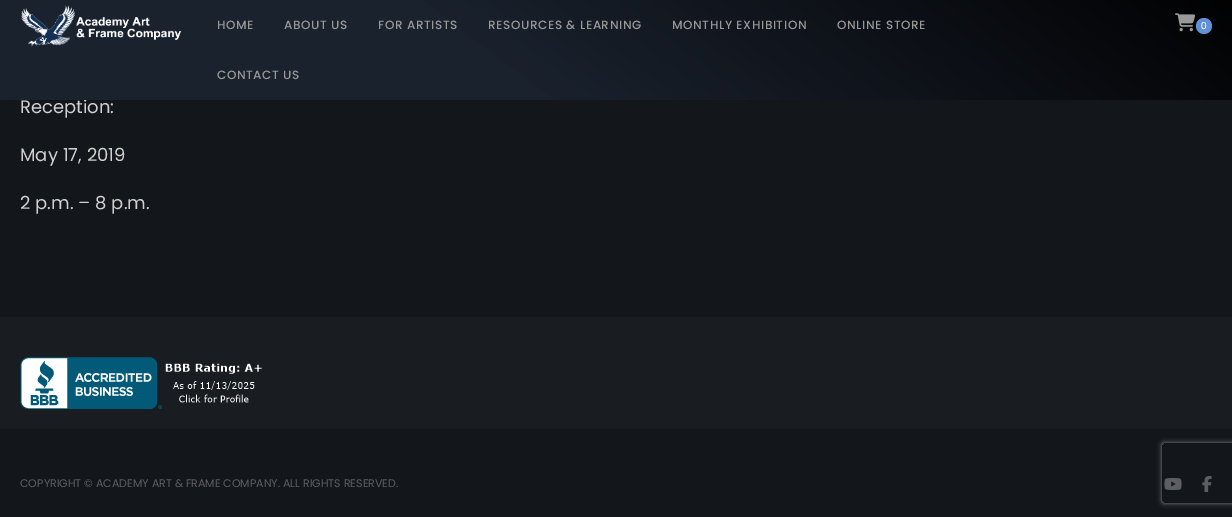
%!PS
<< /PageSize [1232 517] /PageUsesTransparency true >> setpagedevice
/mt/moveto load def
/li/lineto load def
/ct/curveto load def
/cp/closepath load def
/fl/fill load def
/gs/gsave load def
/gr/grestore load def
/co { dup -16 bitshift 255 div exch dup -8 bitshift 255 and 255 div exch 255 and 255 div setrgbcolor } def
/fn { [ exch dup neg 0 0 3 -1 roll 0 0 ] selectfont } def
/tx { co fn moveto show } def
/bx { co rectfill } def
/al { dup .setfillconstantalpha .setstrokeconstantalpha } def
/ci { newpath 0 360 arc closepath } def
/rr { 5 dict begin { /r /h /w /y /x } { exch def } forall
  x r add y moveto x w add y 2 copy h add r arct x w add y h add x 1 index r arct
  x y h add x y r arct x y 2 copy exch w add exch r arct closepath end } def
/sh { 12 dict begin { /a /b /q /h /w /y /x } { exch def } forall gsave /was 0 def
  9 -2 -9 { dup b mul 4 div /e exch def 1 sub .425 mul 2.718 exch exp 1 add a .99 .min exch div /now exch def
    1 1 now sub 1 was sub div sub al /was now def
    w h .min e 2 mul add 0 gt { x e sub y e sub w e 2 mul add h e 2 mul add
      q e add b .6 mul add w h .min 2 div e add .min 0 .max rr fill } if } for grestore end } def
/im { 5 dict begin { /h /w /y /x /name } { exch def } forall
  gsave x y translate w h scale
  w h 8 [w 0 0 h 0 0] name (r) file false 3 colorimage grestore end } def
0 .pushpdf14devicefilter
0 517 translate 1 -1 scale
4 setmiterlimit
0 0 1232 517 16#13161B bx
16#000000 co
4 -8 1224 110 0 2.5 .1 sh
0 317 1232 112 16#191C20 bx
(media/3.raw) 20 357 242 52 im
(media/4.raw) 1164 478 18 12 im
(media/5.raw) 1202 476 10 16 im
gs
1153 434 mt 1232 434 li 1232 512 li 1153 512 li cp 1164 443 mt 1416 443 li 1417 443 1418 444 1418 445 ct 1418 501 li 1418 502 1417 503 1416 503 ct 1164 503 li 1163 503 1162 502 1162 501 ct 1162 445 li 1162 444 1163 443 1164 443 ct cp eoclip newpath
16#808080 co
1162 443 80 60 2 2.5 1 sh
gr
(Reception:) 20 113 /Poppins-Regular 18 16#D1D1D1 tx
gs 0 0 mt 1232 0 li 1232 100 li 0 100 li cp clip newpath
<< /ShadingType 2 /ColorSpace /DeviceRGB /Coords [359 371 873 -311] /Extend [true true] /Function << /FunctionType 3 /Domain [0 1] /Functions [<< /FunctionType 2 /Domain [0 1] /C0 [.102 .133 .18] /C1 [.102 .133 .18] /N 1 >> << /FunctionType 2 /Domain [0 1] /C0 [.102 .133 .18] /C1 [0 0 0] /N 1 >>] /Bounds [.38] /Encode [0 1 0 1] >> >> shfill gr
16#6190D6 co
1204 26 8 ci fl
(0) 1201 29 /LiberationSans-Regular 10 16#FFFFFF tx
(media/2.raw) 1175 13 20 19 im
/Poppins-Medium 12 fn
16#999999 co
217 79 mt .6 0 (CONTACT US) ashow
837 29 mt .6 0 (ONLINE STORE) ashow
672 29 mt .6 0 (MONTHLY EXHIBITION) ashow
488 29 mt .6 0 (RESOURCES & LEARNING) ashow
378 29 mt .6 0 (FOR ARTISTS) ashow
284 29 mt .6 0 (ABOUT US) ashow
217 29 mt .6 0 (HOME) ashow
(media/1.raw) 21 5 160 42 im
(May 17, 2019) 20 161 /Poppins-Regular 18 16#D1D1D1 tx
(2 p.m. – 8 p.m.) 20 209 /Poppins-Regular 18 16#D1D1D1 tx
(COPYRIGHT © ACADEMY ART & FRAME COMPANY. ALL RIGHTS RESERVED.) 20 487 /Poppins-Regular 11 16#5C5E61 tx
.poppdf14devicefilter showpage
